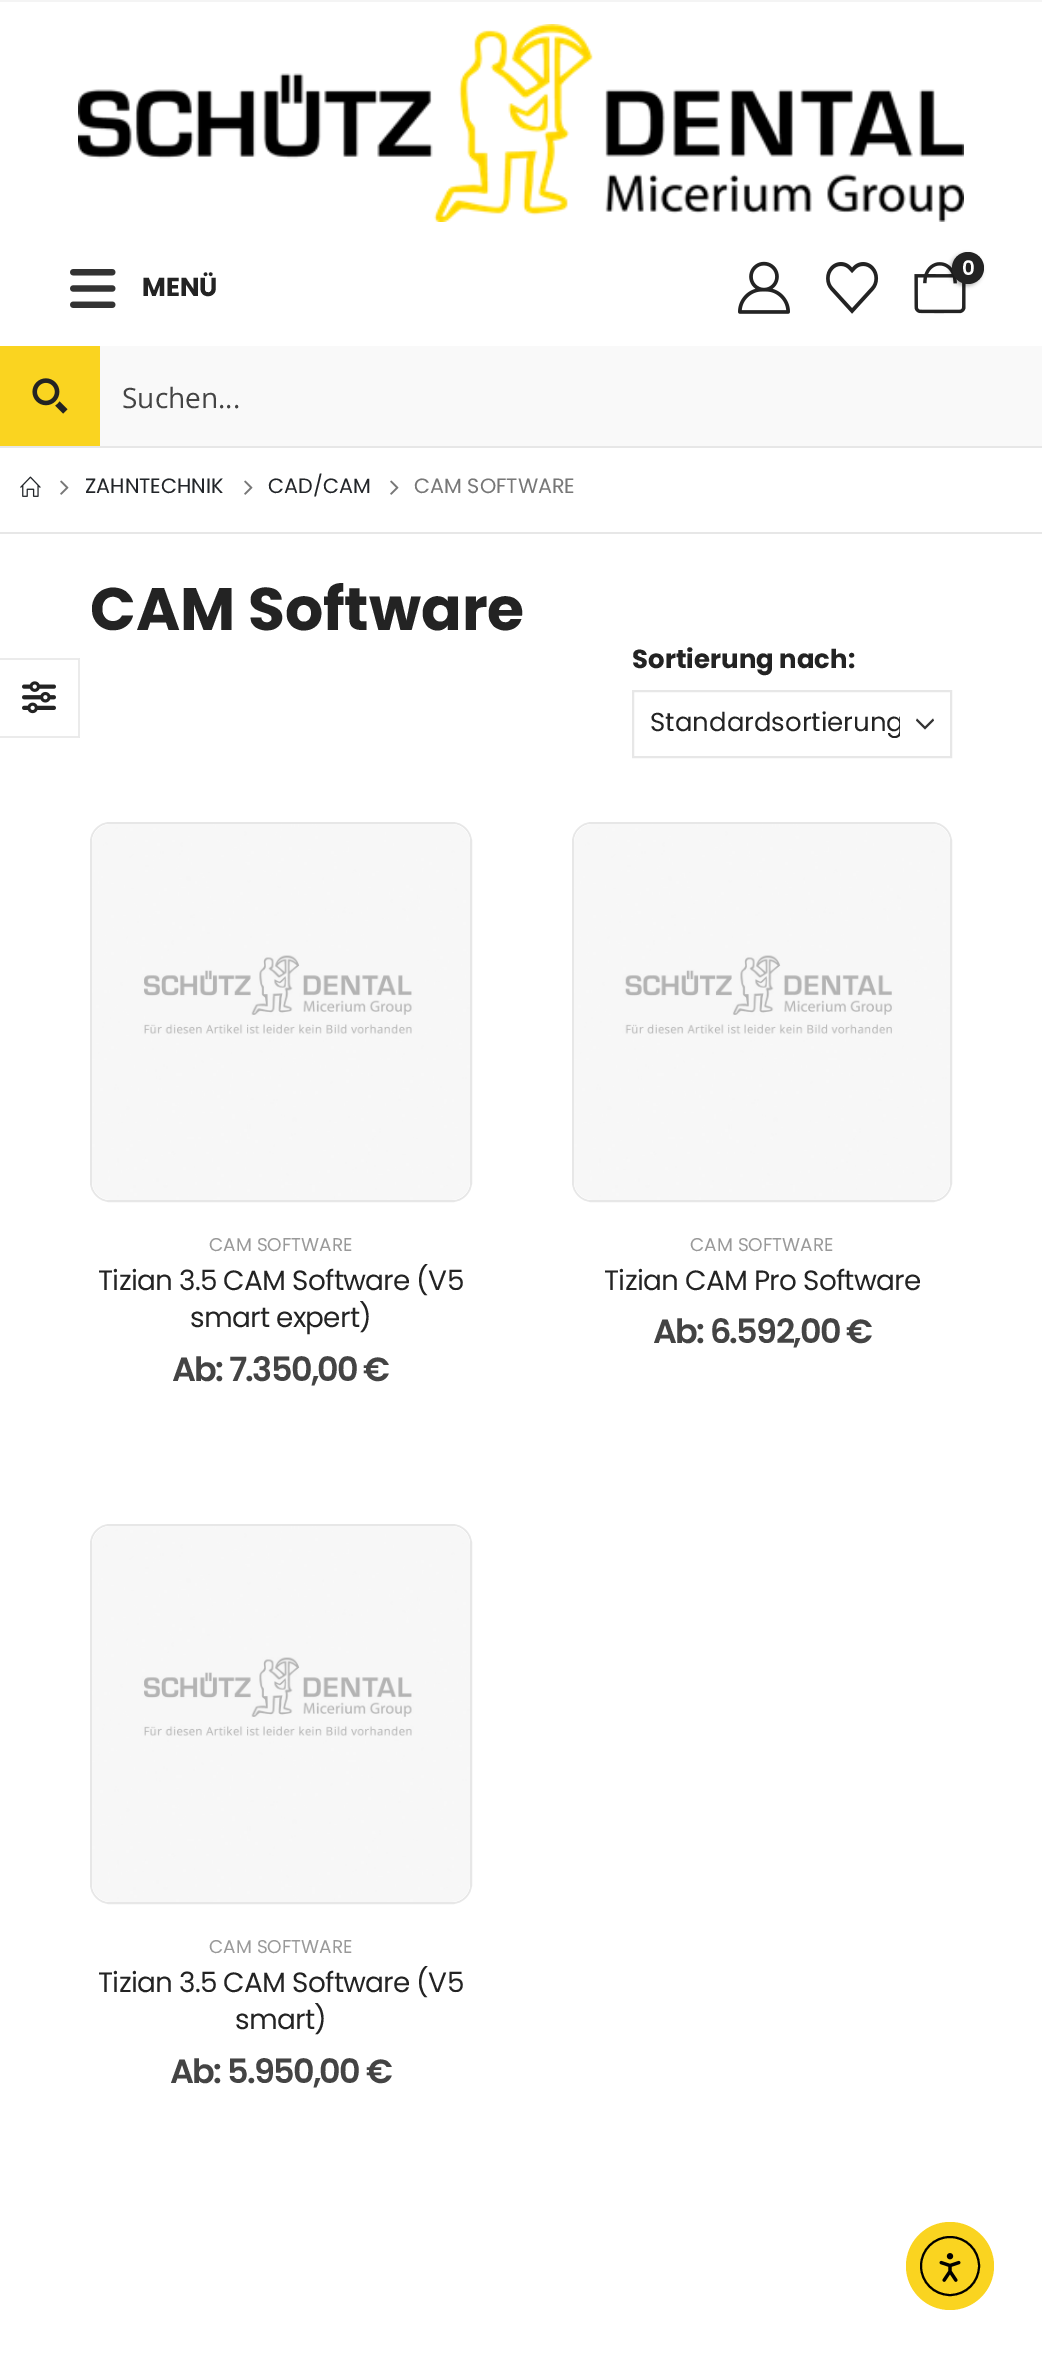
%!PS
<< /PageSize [1042 2358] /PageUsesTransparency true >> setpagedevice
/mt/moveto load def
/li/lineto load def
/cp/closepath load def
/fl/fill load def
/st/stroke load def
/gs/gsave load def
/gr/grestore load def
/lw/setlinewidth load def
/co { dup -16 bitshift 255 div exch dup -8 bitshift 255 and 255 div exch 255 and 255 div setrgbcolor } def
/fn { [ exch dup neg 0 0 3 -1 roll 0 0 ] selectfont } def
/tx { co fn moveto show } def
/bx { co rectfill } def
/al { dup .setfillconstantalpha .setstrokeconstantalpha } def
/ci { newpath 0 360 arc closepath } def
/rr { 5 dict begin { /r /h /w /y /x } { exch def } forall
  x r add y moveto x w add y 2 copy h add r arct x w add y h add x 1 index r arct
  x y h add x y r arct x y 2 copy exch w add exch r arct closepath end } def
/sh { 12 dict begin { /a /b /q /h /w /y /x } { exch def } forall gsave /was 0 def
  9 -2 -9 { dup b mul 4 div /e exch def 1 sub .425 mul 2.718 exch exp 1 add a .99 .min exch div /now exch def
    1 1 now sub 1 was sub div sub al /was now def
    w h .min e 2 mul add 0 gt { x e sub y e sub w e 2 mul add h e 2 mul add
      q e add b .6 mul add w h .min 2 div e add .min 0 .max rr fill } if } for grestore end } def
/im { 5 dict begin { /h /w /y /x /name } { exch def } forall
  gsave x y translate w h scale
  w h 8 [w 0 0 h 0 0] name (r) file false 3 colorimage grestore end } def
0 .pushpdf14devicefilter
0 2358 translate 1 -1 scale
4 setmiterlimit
0 0 1042 2358 16#FFFFFF bx
0 0 1042 2 16#F4F4F4 bx
(media/1.raw) 78 24 886 198 im
(media/2.raw) 70 269 46 39 im
(media/3.raw) 738 261 52 53 im
(media/4.raw) 826 262 53 52 im
(media/5.raw) 914 262 52 52 im
16#000000 co
950 254 32 32 16 2 .3 sh
16#232323 co
968 268 16 ci fl
100 346 942 100 16#F9F9F9 bx
0 346 100 100 16#FAD420 bx
(media/6.raw) 32 378 36 36 im
0 446 1042 2 16#E7E7E7 bx
(media/7.raw) 20 476 21 21 im
(media/8.raw) 60 480 9 15 im
(media/8.raw) 244 480 9 15 im
(media/8.raw) 390 480 9 15 im
0 532 1042 2 16#E7E7E7 bx
16#EBEBEB co
0 658 mt 80 658 li 78 660 li 0 660 li cp fl
0.08 al
16#000000 co
80 658 mt 80 738 li 78 736 li 78 660 li cp fl
80 738 mt 0 738 li 0 736 li 78 736 li cp fl
1 al
(media/9.raw) 22 681 34 33 im
16#333333 co
925 729.5 mt 934 720.5 li 933 718.5 li 925 726.5 li 917 718.5 li 916 720.5 li cp eofill
16#E7E7E7 co
2 lw
633 691 318 66 rectstroke
91 823 380 378 19 rr st
16#FFFFFF co
92 824 378 376 18 rr fl
(media/10.raw) 92 824 378 376 im
0.08 al
92 824 378 376 18 rr fl
1 al
16#E7E7E7 co
573 823 378 378 19 rr st
16#FFFFFF co
574 824 376 376 18 rr fl
(media/11.raw) 574 824 376 376 im
0.08 al
574 824 376 376 18 rr fl
1 al
16#E7E7E7 co
91 1525 380 378 19 rr st
16#FFFFFF co
92 1526 378 376 18 rr fl
(media/10.raw) 92 1526 378 376 im
0.08 al
92 1526 378 376 18 rr fl
1 al
16#FAD420 co
950 2266 44 ci fl
16#000000 co
950 2266 29 ci st
(media/12.raw) 939 2253 22 29 im
(MENÜ) 142 296 /Poppins-Bold 26 16#232323 tx
(0) 962 275 /Poppins-SemiBold 20 16#FFFFFF tx
(Suchen...) 122 408 /OpenSans-Regular 28 16#444444 tx
(ZAHNTECHNIK) 85 493 /Poppins-Regular 20.75 16#222529 tx
(CAD/CAM) 268 493 /Poppins-Regular 20.75 16#222529 tx
(CAM SOFTWARE) 414 493 /Poppins-Regular 20.75 16#777777 tx
(CAM Software) 90 630 /Poppins-Bold 60 16#232323 tx
(Sortierung nach:) 632 668 /Poppins-Bold 26 16#232323 tx
gs
650 706 250 36 rectclip
(Standardsortierung) 650 731 /Poppins-Regular 26 16#232323 tx
gr
(CAM SOFTWARE) 209 1251 /Poppins-Regular 18.5 16#999999 tx
/Poppins-Regular 27.9 fn
16#232323 co
98 1290 mt -.7 0 (Tizian 3.5 CAM Software \(V5) ashow
190 1327 mt -.7 0 (smart expert\)) ashow
/Poppins-SemiBold 33.5 fn
16#444444 co
172 1381 mt -1.7 0 (Ab: 7.350,00 €) ashow
(CAM SOFTWARE) 690 1251 /Poppins-Regular 18.5 16#999999 tx
/Poppins-Regular 27.9 fn
16#232323 co
604 1290 mt -.7 0 (Tizian CAM Pro Software) ashow
/Poppins-SemiBold 33.5 fn
16#444444 co
653 1343 mt -1.7 0 (Ab: 6.592,00 €) ashow
(CAM SOFTWARE) 209 1953 /Poppins-Regular 18.5 16#999999 tx
/Poppins-Regular 27.9 fn
16#232323 co
98 1992 mt -.7 0 (Tizian 3.5 CAM Software \(V5) ashow
235 2029 mt -.7 0 (smart\)) ashow
/Poppins-SemiBold 33.5 fn
16#444444 co
170 2083 mt -1.7 0 (Ab: 5.950,00 €) ashow
.poppdf14devicefilter showpage
